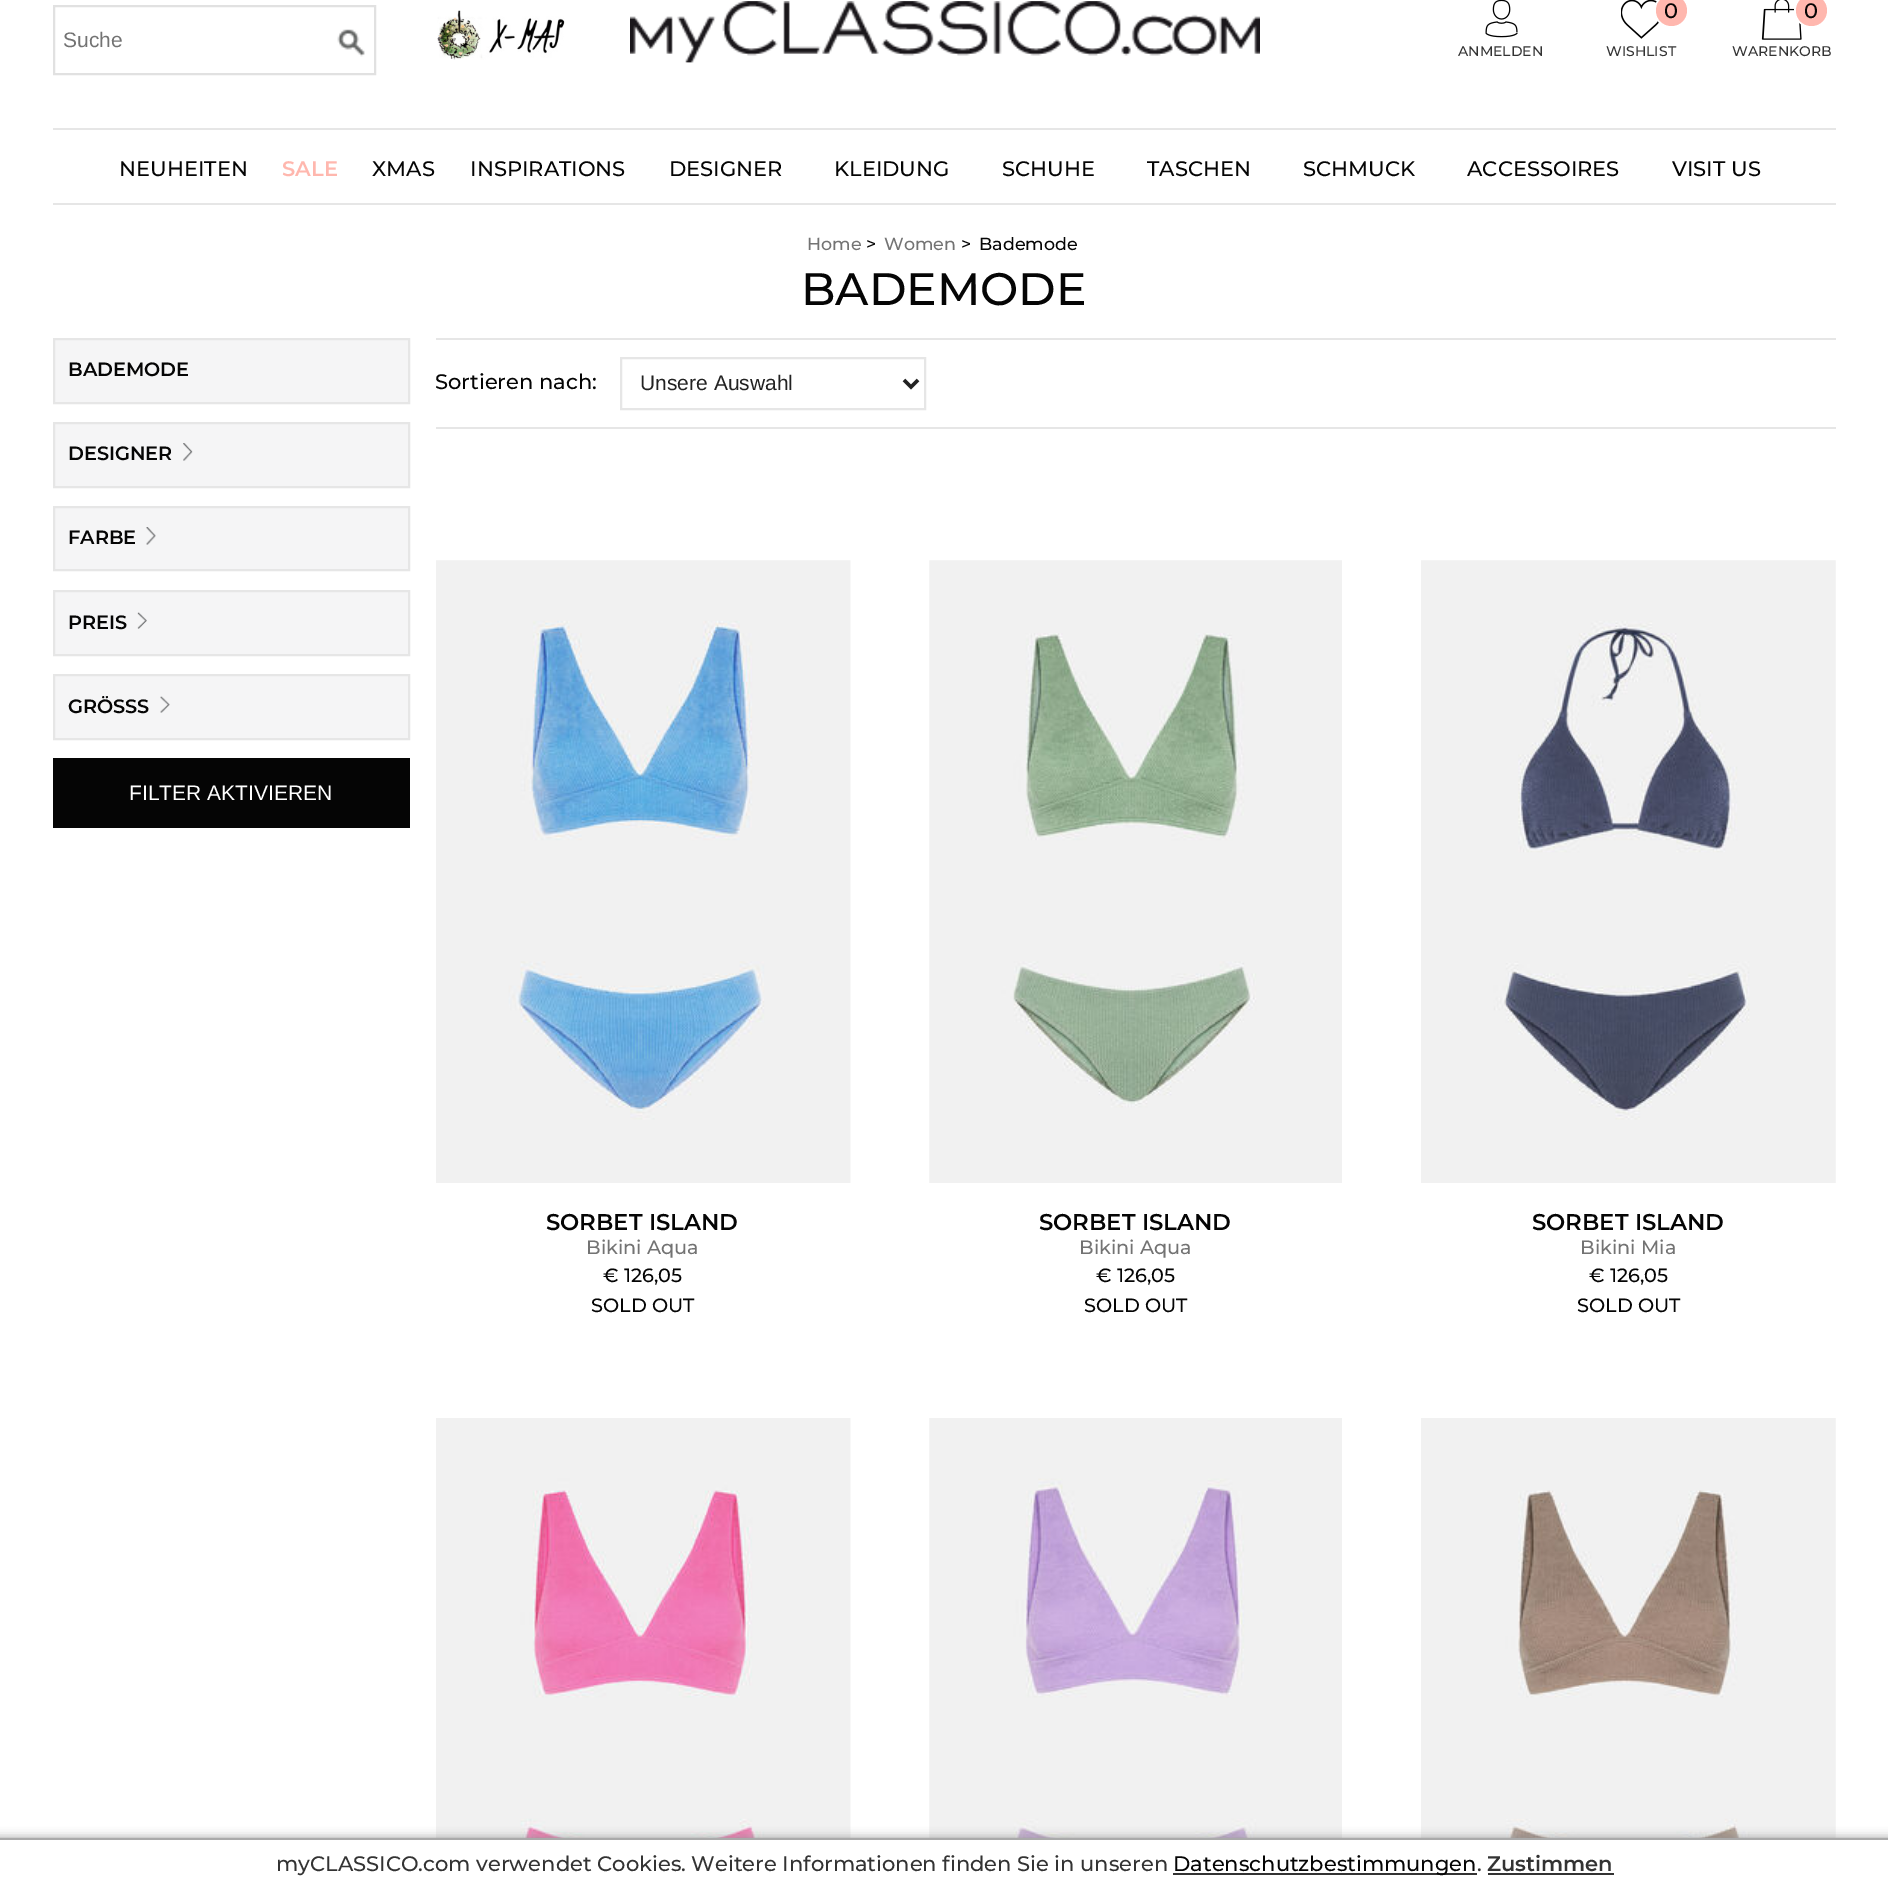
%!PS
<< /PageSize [1888 1888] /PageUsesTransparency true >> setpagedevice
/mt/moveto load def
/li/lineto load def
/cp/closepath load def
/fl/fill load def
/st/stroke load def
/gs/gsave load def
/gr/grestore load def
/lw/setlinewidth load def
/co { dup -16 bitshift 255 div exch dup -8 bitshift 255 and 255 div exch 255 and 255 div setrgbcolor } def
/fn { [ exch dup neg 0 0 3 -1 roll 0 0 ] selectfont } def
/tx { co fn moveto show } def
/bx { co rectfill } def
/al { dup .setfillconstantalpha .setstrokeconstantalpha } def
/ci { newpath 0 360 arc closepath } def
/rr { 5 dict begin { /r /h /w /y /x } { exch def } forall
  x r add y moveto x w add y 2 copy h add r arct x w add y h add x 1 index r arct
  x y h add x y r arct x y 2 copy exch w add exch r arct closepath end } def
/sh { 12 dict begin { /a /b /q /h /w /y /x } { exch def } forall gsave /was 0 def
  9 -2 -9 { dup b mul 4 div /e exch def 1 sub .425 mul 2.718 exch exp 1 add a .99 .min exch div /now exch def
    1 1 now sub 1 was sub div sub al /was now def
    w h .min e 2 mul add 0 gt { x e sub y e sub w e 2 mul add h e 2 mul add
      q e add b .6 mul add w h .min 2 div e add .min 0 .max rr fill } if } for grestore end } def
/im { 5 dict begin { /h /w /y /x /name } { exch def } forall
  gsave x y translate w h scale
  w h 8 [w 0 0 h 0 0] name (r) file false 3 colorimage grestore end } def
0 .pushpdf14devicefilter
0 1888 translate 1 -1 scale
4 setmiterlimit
0 0 1888 1888 16#FFFFFF bx
(media/1.raw) 337 29 28 28 im
16#E1E1E1 co
2 lw
54 6 321 68 rectstroke
(media/2.raw) 437 10 128 50 im
(media/3.raw) 630 1 630 62 im
(media/4.raw) 1485 0 33 38 im
(media/5.raw) 1621 0 40 39 im
16#FFFFFF co
1671.5 10.5 16.5 ci st
16#FFB7AE co
1671.5 10.5 15.5 ci fl
(media/6.raw) 1761 0 41 40 im
16#FFFFFF co
1811.5 10.5 16.5 ci st
16#FFB7AE co
1811.5 10.5 15.5 ci fl
53 128 1783 2 16#E6E6E6 bx
53 203 1783 2 16#E6E6E6 bx
16#F5F5F6 co
54 339 mt 409 339 li 409 403 li 54 403 li cp gs fl gr
16#E6E6E6 co
st
16#F5F5F6 co
54 423 mt 409 423 li 409 487 li 54 487 li cp gs fl gr
16#E6E6E6 co
st
(media/7.raw) 183 443 10 18 im
16#F5F5F6 co
54 507 mt 409 507 li 409 570 li 54 570 li cp gs fl gr
16#E6E6E6 co
st
(media/8.raw) 146 527 10 18 im
16#F5F5F6 co
54 591 mt 409 591 li 409 655 li 54 655 li cp gs fl gr
16#E6E6E6 co
st
(media/9.raw) 137 612 10 17 im
16#F5F5F6 co
54 675 mt 409 675 li 409 739 li 54 739 li cp gs fl gr
16#E6E6E6 co
st
(media/10.raw) 160 696 10 17 im
53 758 357 70 16#050505 bx
436 338 1400 2 16#E6E6E6 bx
436 427 1400 2 16#E6E6E6 bx
621 358 304 51 rectstroke
16#222222 co
3.5 lw
904 380 mt 911 387 li 918 380 li st
(media/11.raw) 436 560 415 623 im
(media/12.raw) 929 560 413 623 im
(media/13.raw) 1421 560 415 623 im
(media/14.raw) 436 1418 415 420 im
(media/15.raw) 929 1418 413 420 im
(media/16.raw) 1421 1418 415 420 im
16#999999 co
-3 1838 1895 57 0 5 1 sh
0 1840 1888 48 16#FFFFFF bx
0 1838 1888 2 16#AAAAAA bx
1173 1873 304 2 16#333333 bx
1488 1873 126 2 16#333333 bx
(Suche) 63 47 /LiberationSans-Regular 21 16#737373 tx
(ANMELDEN) 1458 56 /Montserrat-Thin 14 16#333333 tx
(0) 1664 18 /Montserrat-Thin 21 16#050505 tx
(WISHLIST) 1606 56 /Montserrat-Thin 14 16#333333 tx
(0) 1804 18 /Montserrat-Thin 21 16#050505 tx
(WARENKORB) 1732 56 /Montserrat-Thin 14 16#333333 tx
(NEUHEITEN) 119 176 /Montserrat-Thin 21 16#050505 tx
(SALE) 282 176 /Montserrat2-Thin 21 16#FFB7AE tx
(XMAS) 372 176 /Montserrat-Thin 21 16#050505 tx
(INSPIRATIONS) 470 176 /Montserrat-Thin 21 16#050505 tx
(DESIGNER) 669 176 /Montserrat-Thin 21 16#050505 tx
(KLEIDUNG) 834 176 /Montserrat-Thin 21 16#050505 tx
(SCHUHE) 1002 176 /Montserrat-Thin 21 16#050505 tx
(TASCHEN) 1147 176 /Montserrat-Thin 21 16#050505 tx
(SCHMUCK) 1303 176 /Montserrat-Thin 21 16#050505 tx
(ACCESSOIRES) 1467 176 /Montserrat-Thin 21 16#050505 tx
(VISIT US) 1672 176 /Montserrat-Thin 21 16#050505 tx
(Home) 807 250 /Montserrat-Thin 17.5 16#737373 tx
(>) 866 250 /Montserrat-Thin 17.5 16#050505 tx
(Women) 884 250 /Montserrat-Thin 17.5 16#737373 tx
(>) 961 250 /Montserrat-Thin 17.5 16#050505 tx
(Bademode) 979 250 /Montserrat-Thin 17.5 16#050505 tx
(BADEMODE) 801 305 /Montserrat-Thin 45.5 16#050505 tx
(BADEMODE) 68 376 /Montserrat2-Thin 19.25 16#050505 tx
(DESIGNER) 68 460 /Montserrat2-Thin 19.25 16#050505 tx
(FARBE) 68 544 /Montserrat2-Thin 19.25 16#050505 tx
(PREIS) 68 629 /Montserrat2-Thin 19.25 16#050505 tx
(GRÖSSS) 68 713 /Montserrat2-Thin 19.25 16#050505 tx
(FILTER AKTIVIEREN) 129 800 /LiberationSans-Regular 21 16#FFFFFF tx
(Sortieren nach:) 435 389 /Montserrat-Thin 21 16#050505 tx
(Unsere Auswahl) 640 390 /LiberationSans-Regular 21 16#222222 tx
(SORBET ISLAND) 546 1230 /Montserrat2-Thin 22.75 16#050505 tx
(Bikini Aqua) 586 1254 /Montserrat-Thin 19.25 16#737373 tx
(€ 126,05) 603 1282 /Montserrat-Thin 19.25 16#050505 tx
(SOLD OUT) 591 1312 /Montserrat-Thin 19.25 16#050505 tx
(SORBET ISLAND) 1039 1230 /Montserrat2-Thin 22.75 16#050505 tx
(Bikini Aqua) 1079 1254 /Montserrat-Thin 19.25 16#737373 tx
(€ 126,05) 1096 1282 /Montserrat-Thin 19.25 16#050505 tx
(SOLD OUT) 1084 1312 /Montserrat-Thin 19.25 16#050505 tx
(SORBET ISLAND) 1532 1230 /Montserrat2-Thin 22.75 16#050505 tx
(Bikini Mia) 1580 1254 /Montserrat-Thin 19.25 16#737373 tx
(€ 126,05) 1589 1282 /Montserrat-Thin 19.25 16#050505 tx
(SOLD OUT) 1577 1312 /Montserrat-Thin 19.25 16#050505 tx
(myCLASSICO.com verwendet Cookies. Weitere Informationen finden Sie in unseren) 276 1871 /Montserrat-Thin 21 16#333333 tx
(Datenschutzbestimmungen) 1173 1871 /Montserrat-Thin 21 16#050505 tx
(.) 1477 1871 /Montserrat-Thin 21 16#333333 tx
(Zustimmen) 1487 1871 /Montserrat2-Thin 21 16#333333 tx
.poppdf14devicefilter showpage
